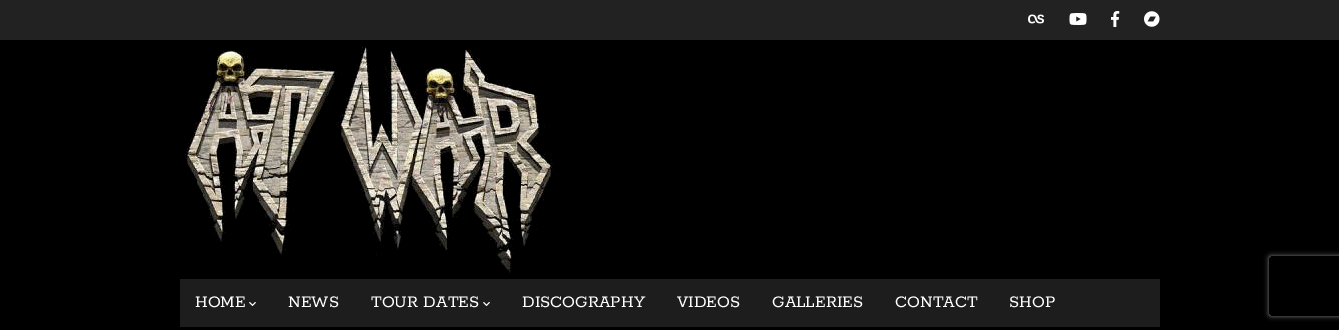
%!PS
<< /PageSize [1339 330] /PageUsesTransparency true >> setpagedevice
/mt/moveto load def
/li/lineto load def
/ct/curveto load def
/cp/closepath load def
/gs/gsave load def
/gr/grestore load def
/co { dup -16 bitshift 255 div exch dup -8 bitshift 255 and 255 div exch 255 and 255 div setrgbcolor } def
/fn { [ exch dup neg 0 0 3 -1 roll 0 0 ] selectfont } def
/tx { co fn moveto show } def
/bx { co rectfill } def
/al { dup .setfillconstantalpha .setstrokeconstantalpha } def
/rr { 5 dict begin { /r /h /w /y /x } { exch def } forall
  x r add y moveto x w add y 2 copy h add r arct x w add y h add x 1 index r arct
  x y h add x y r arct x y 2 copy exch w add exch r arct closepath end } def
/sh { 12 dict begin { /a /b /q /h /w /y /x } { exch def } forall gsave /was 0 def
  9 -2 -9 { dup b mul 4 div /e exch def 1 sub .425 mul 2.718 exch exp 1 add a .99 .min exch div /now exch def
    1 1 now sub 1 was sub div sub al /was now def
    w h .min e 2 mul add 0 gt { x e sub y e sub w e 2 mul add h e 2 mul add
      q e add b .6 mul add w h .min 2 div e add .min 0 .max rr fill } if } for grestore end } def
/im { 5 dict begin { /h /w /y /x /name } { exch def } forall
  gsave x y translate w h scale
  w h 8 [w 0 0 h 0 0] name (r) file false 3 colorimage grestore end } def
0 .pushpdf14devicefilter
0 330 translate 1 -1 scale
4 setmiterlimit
0 0 1339 330 16#000000 bx
0 0 1339 40 16#222222 bx
(media/1.raw) 1028 14 16 10 im
(media/2.raw) 1069 13 18 12 im
(media/3.raw) 1111 11 9 16 im
(media/4.raw) 1144 11 16 16 im
(media/5.raw) 185 47 368 226 im
180 279 980 48 16#1D1D1D bx
(media/6.raw) 249 302 7 4 im
(media/6.raw) 483 302 7 4 im
gs
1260 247 mt 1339 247 li 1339 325 li 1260 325 li cp 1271 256 mt 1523 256 li 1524 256 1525 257 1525 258 ct 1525 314 li 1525 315 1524 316 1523 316 ct 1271 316 li 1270 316 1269 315 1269 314 ct 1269 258 li 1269 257 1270 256 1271 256 ct cp eoclip newpath
16#808080 co
1269 256 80 60 2 2.5 1 sh
gr
(HOME) 195 307 /Rokkitt-Regular 18 16#FFFFFF tx
(NEWS) 288 307 /Rokkitt-Regular 18 16#FFFFFF tx
(TOUR DATES) 371 307 /Rokkitt-Regular 18 16#FFFFFF tx
(DISCOGRAPHY) 522 307 /Rokkitt-Regular 18 16#FFFFFF tx
(VIDEOS) 677 307 /Rokkitt-Regular 18 16#FFFFFF tx
(GALLERIES) 772 307 /Rokkitt-Regular 18 16#FFFFFF tx
(CONTACT) 895 307 /Rokkitt-Regular 18 16#FFFFFF tx
(SHOP) 1009 307 /Rokkitt-Regular 18 16#FFFFFF tx
.poppdf14devicefilter showpage
